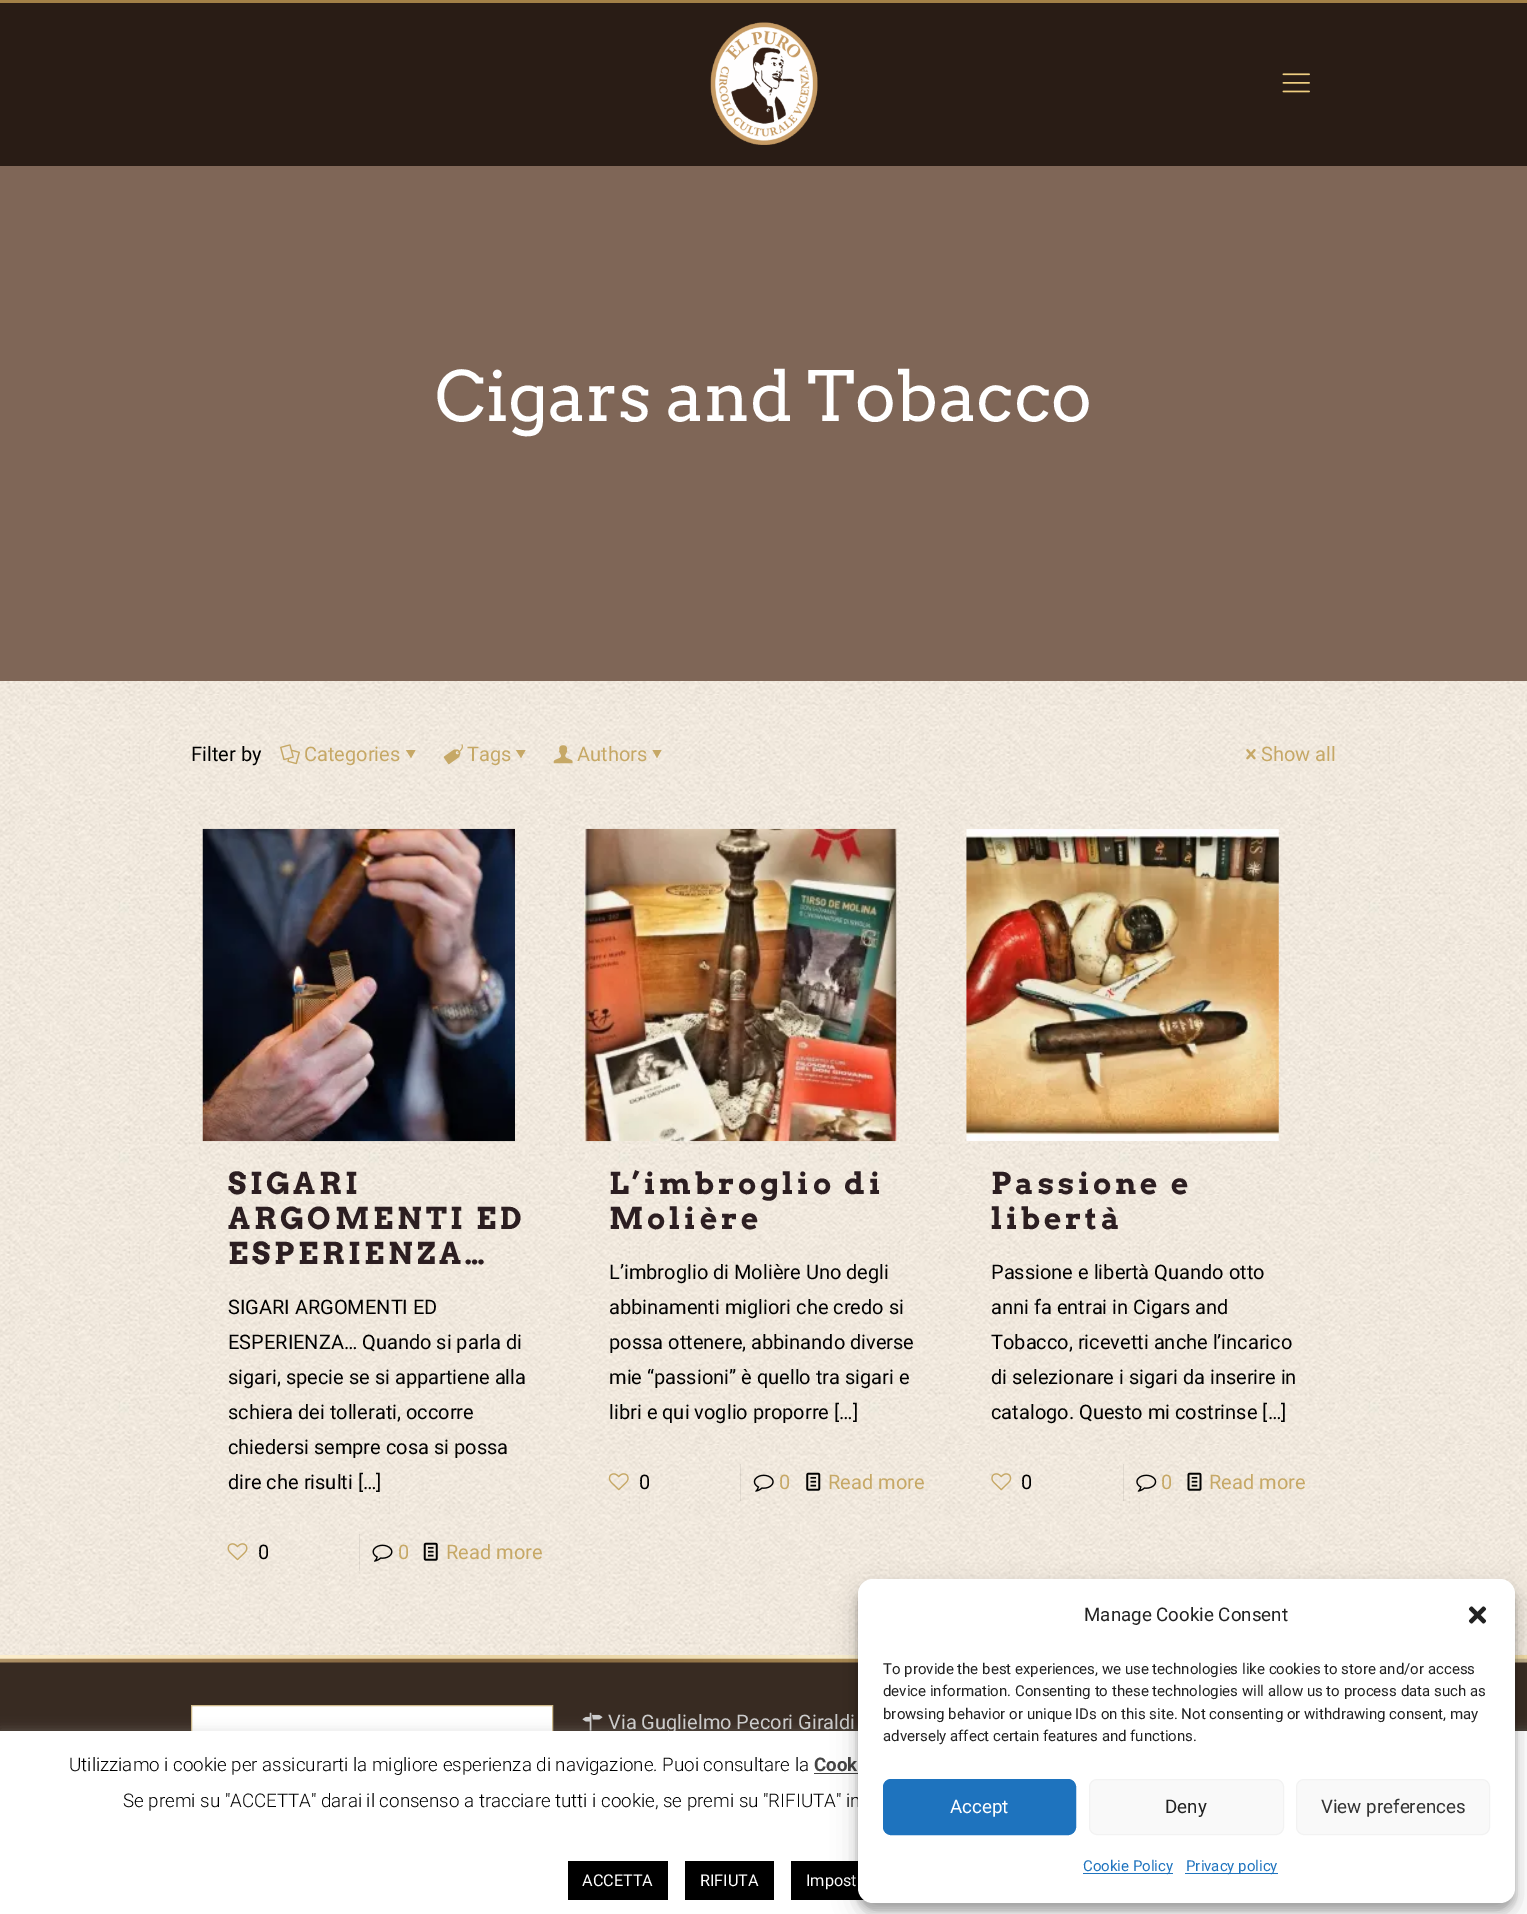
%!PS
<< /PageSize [1527 1914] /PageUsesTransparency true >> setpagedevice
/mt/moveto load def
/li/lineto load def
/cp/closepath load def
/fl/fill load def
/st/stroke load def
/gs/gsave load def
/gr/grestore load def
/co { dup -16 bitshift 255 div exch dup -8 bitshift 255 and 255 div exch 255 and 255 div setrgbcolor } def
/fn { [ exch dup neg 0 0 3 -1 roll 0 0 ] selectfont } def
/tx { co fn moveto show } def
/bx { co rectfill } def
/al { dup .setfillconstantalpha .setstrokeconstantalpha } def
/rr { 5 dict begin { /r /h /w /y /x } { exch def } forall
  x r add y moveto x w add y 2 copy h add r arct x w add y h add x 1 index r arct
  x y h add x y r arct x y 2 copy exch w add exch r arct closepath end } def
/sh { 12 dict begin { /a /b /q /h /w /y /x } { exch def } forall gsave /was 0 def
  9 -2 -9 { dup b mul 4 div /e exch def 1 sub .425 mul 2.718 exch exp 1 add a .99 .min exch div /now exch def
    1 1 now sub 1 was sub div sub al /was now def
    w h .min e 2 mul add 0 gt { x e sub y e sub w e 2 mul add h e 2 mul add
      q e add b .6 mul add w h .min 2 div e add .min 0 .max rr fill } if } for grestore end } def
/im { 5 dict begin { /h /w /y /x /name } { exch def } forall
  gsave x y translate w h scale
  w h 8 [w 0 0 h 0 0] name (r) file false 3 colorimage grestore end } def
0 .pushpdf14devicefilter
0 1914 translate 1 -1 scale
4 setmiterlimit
0 0 1527 1914 16#FFFFFF bx
(media/1.raw) 0 681 1527 974 im
0 166 1527 515 16#7F6657 bx
0 3 1527 163 16#291C15 bx
0 0 1527 3 16#A28047 bx
(media/2.raw) 710 22 108 123 im
(media/3.raw) 1282 73 28 20 im
(media/4.raw) 280 744 20 21 im
16#C6A866 co
415.5 750 mt 411 758 li 406 750 li cp fl
(media/5.raw) 443 744 20 21 im
525.5 750 mt 521 758 li 516 750 li cp fl
(media/6.raw) 553 745 20 19 im
661.5 750 mt 657 758 li 652.5 750 li cp fl
(media/7.raw) 1246 749 10 11 im
(media/8.raw) 202 828 313 314 im
(media/9.raw) 227 1543 21 18 im
0.08 al
359 1534 1 37 16#000000 bx
1 al
(media/10.raw) 372 1544 21 18 im
(media/11.raw) 423 1542 15 19 im
(media/12.raw) 584 828 313 314 im
(media/13.raw) 608 1473 21 18 im
0.08 al
740 1464 1 37 16#000000 bx
1 al
(media/14.raw) 753 1474 21 18 im
(media/15.raw) 806 1472 15 19 im
(media/16.raw) 966 829 313 312 im
(media/17.raw) 991 1473 21 18 im
0.08 al
1123 1464 1 37 16#000000 bx
1 al
(media/18.raw) 1136 1474 21 18 im
(media/19.raw) 1187 1472 15 19 im
0 1662 1527 69 16#382B22 bx
(media/20.raw) 0 1655 1527 8 im
192 1706 360 25 16#FFFFFF bx
16#CEB989 co
191.5 1705.5 361 49 rectstroke
(media/21.raw) 582 1712 21 19 im
16#ACABAB co
0 1730 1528 184 0 6 .3 sh
(Cigars and Tobacco) 435 421 /Arvo-Regular 68.75 16#FFFFFF tx
(Filter by) 191 761 /Roboto-Regular 20 16#000000 tx
(Categories) 304 761 /Roboto-Regular 20 16#C6A866 tx
(Tags) 467 761 /Roboto-Regular 20 16#C6A866 tx
(Authors) 577 761 /Roboto-Regular 20 16#C6A866 tx
(Show all) 1261 761 /Roboto-Regular 20 16#C6A866 tx
/Arvo-Bold 30 fn
16#2C1E21 co
228 1194 mt 3.75 0 (SIGARI) ashow
228 1229 mt 3.75 0 (ARGOMENTI ED) ashow
228 1264 mt 3.75 0 (ESPERIENZA…) ashow
(SIGARI ARGOMENTI ED) 228 1314 /Roboto-Regular 20 16#000000 tx
(ESPERIENZA… Quando si parla di) 228 1349 /Roboto-Regular 20 16#000000 tx
(sigari, specie se si appartiene alla) 228 1384 /Roboto-Regular 20 16#000000 tx
(schiera dei tollerati, occorre) 228 1419 /Roboto-Regular 20 16#000000 tx
(chiedersi sempre cosa si possa) 228 1454 /Roboto-Regular 20 16#000000 tx
(dire che risulti […]) 228 1489 /Roboto-Regular 20 16#000000 tx
(0) 258 1559 /Roboto-Regular 20 16#000000 tx
(0) 398 1559 /Roboto-Regular 20 16#C6A866 tx
(Read more) 446 1559 /Roboto-Regular 20 16#C6A866 tx
/Arvo-Bold 30 fn
16#2C1E21 co
609 1194 mt 3.75 0 (L’imbroglio di) ashow
609 1229 mt 3.75 0 (Molière) ashow
(L’imbroglio di Molière Uno degli) 609 1279 /Roboto-Regular 20 16#000000 tx
(abbinamenti migliori che credo si) 609 1314 /Roboto-Regular 20 16#000000 tx
(possa ottenere, abbinando diverse) 609 1349 /Roboto-Regular 20 16#000000 tx
(mie “passioni” è quello tra sigari e) 609 1384 /Roboto-Regular 20 16#000000 tx
(libri e qui voglio proporre […]) 609 1419 /Roboto-Regular 20 16#000000 tx
(0) 639 1489 /Roboto-Regular 20 16#000000 tx
(0) 779 1489 /Roboto-Regular 20 16#C6A866 tx
(Read more) 828 1489 /Roboto-Regular 20 16#C6A866 tx
/Arvo-Bold 30 fn
16#2C1E21 co
991 1194 mt 3.75 0 (Passione e) ashow
991 1229 mt 3.75 0 (libertà) ashow
(Passione e libertà Quando otto) 991 1279 /Roboto-Regular 20 16#000000 tx
(anni fa entrai in Cigars and) 991 1314 /Roboto-Regular 20 16#000000 tx
(Tobacco, ricevetti anche l’incarico) 991 1349 /Roboto-Regular 20 16#000000 tx
(di selezionare i sigari da inserire in) 991 1384 /Roboto-Regular 20 16#000000 tx
(catalogo. Questo mi costrinse […]) 991 1419 /Roboto-Regular 20 16#000000 tx
(0) 1021 1489 /Roboto-Regular 20 16#000000 tx
(0) 1161 1489 /Roboto-Regular 20 16#C6A866 tx
(Read more) 1209 1489 /Roboto-Regular 20 16#C6A866 tx
(Via Guglielmo Pecori Giraldi) 608 1729 /Roboto-Regular 20 16#CCCCCC tx
0 1731 1527 183 16#FFFFFF bx
(Utilizziamo i cookie per assicurarti la migliore esperienza di navigazione. Puoi consultare la) 69 1771 /Roboto-Light 18.75 16#000000 tx
(Cook) 814 1771 /Roboto-Bold 18.75 16#444444 tx
814 1773 44 1 16#444444 bx
(Se premi su "ACCETTA" darai il consenso a tracciare tutti i cookie, se premi su "RIFIUTA" in) 123 1807 /Roboto-Light 18.75 16#000000 tx
568 1861 100 39 16#000000 bx
(ACCETTA) 582 1886 /Roboto-Regular 16.25 16#FFFFFF tx
685 1861 89 39 16#000000 bx
(RIFIUTA) 700 1886 /Roboto-Regular 16.25 16#FFFFFF tx
791 1861 73 39 16#000000 bx
(Impost) 806 1886 /Roboto-Regular 16.25 16#FFFFFF tx
16#000000 co
858 1586 657 324 15 4 .23 sh
858 1591 657 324 15 12.5 .19 sh
16#FFFFFF co
858 1579 657 324 15 rr fl
(Manage Cookie Consent) 1084 1621 /Roboto-Regular 18.75 16#222222 tx
(media/22.raw) 1468 1606 19 18 im
(To provide the best experiences, we use technologies like cookies to store and/or access) 883 1674 /Roboto-Regular 15 16#222222 tx
(device information. Consenting to these technologies will allow us to process data such as) 883 1696 /Roboto-Regular 15 16#222222 tx
(browsing behavior or unique IDs on this site. Not consenting or withdrawing consent, may) 883 1719 /Roboto-Regular 15 16#222222 tx
(adversely affect certain features and functions.) 883 1741 /Roboto-Regular 15 16#222222 tx
16#1E73BE co
883.5 1779.5 192 55 7.5 rr gs fl gr
st
(Accept) 950 1813 /Roboto-Regular 18.75 16#FFFFFF tx
16#F9F9F9 co
1089.5 1779.5 194 55 7.5 rr gs fl gr
16#F2F2F2 co
st
(Deny) 1165 1813 /Roboto-Regular 18.75 16#222222 tx
16#F9F9F9 co
1296.5 1779.5 193 55 7.5 rr gs fl gr
16#F2F2F2 co
st
(View preferences) 1321 1813 /Roboto-Regular 18.75 16#333333 tx
1083 1873 90 1 16#1E73BE bx
(Cookie Policy) 1083 1871 /Roboto-Regular 15 16#1E73BE tx
1185 1873 93 1 16#1E73BE bx
(Privacy policy) 1186 1871 /Roboto-Regular 15 16#1E73BE tx
.poppdf14devicefilter showpage
